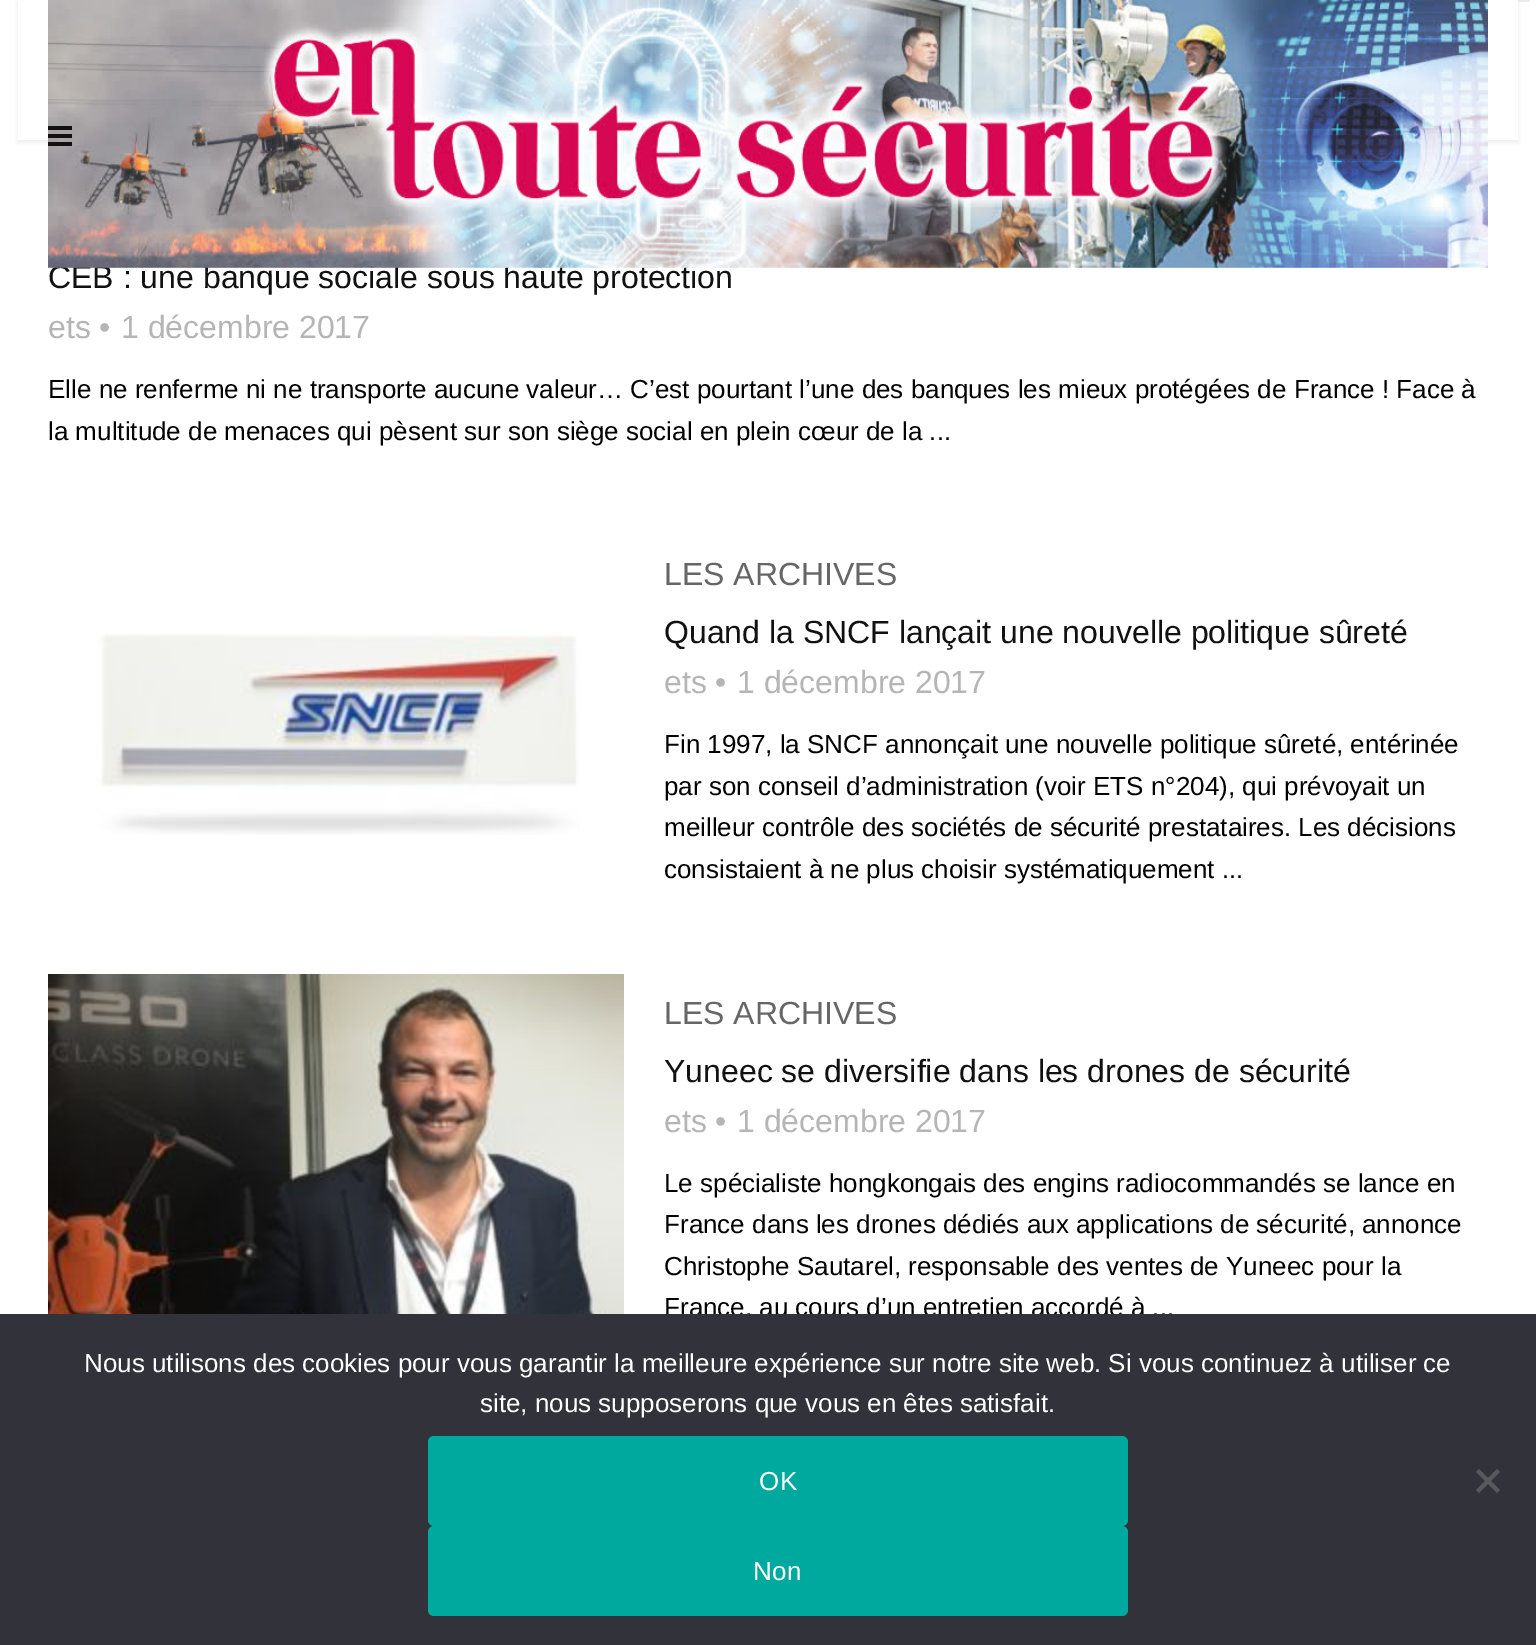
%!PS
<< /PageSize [1536 1645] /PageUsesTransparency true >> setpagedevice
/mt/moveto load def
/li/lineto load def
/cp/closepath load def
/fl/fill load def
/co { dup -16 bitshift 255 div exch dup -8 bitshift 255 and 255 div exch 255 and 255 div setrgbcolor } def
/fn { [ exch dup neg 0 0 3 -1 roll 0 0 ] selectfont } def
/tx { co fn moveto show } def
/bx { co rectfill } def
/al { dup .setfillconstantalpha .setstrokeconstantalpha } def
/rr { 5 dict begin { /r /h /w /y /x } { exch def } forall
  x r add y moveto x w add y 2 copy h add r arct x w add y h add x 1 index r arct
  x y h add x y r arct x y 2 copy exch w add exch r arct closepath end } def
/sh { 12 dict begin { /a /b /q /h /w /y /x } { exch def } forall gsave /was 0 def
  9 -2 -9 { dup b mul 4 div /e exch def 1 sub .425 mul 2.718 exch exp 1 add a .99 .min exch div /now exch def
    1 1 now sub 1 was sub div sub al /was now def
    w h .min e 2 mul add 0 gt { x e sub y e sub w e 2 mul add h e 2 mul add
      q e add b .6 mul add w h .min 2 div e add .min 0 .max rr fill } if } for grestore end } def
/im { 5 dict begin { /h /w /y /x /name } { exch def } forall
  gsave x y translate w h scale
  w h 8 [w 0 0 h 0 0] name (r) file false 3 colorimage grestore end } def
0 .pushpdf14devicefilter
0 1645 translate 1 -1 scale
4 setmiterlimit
0 0 1536 1645 16#FFFFFF bx
1518 0 12 2 16#EAEAEA bx
18 2 1500 140 0 2 1 sh
18 0 1500 140 16#FFFFFF bx
(media/2.raw) 96 632 484 203 im
(media/3.raw) 48 974 576 340 im
(CEB : une banque sociale sous haute protection) 48 288 /LiberationSans-Regular 32 16#111111 tx
(media/1.raw) 48 0 1440 268 im
48 142 24 4 16#111111 bx
48 134 24 4 16#111111 bx
48 126 24 4 16#111111 bx
(ets) 48 338 /LiberationSans-Regular 32 16#B5B5B5 tx
(•) 99 338 /LiberationSans-Regular 32 16#B5B5B5 tx
(1 décembre 2017) 121 338 /LiberationSans-Regular 32 16#B5B5B5 tx
(Elle ne renferme ni ne transporte aucune valeur… C’est pourtant l’une des banques les mieux protégées de France ! Face à) 48 398 /LiberationSans-Regular 26 16#000000 tx
(la multitude de menaces qui pèsent sur son siège social en plein cœur de la ...) 48 440 /LiberationSans-Regular 26 16#000000 tx
(LES ARCHIVES) 664 585 /LiberationSans-Regular 32 16#666666 tx
(Quand la SNCF lançait une nouvelle politique sûreté) 664 643 /LiberationSans-Regular 32 16#111111 tx
(ets) 664 693 /LiberationSans-Regular 32 16#B5B5B5 tx
(•) 715 693 /LiberationSans-Regular 32 16#B5B5B5 tx
(1 décembre 2017) 737 693 /LiberationSans-Regular 32 16#B5B5B5 tx
(Fin 1997, la SNCF annonçait une nouvelle politique sûreté, entérinée) 664 753 /LiberationSans-Regular 26 16#000000 tx
(par son conseil d’administration \(voir ETS n°204\), qui prévoyait un) 664 795 /LiberationSans-Regular 26 16#000000 tx
(meilleur contrôle des sociétés de sécurité prestataires. Les décisions) 664 836 /LiberationSans-Regular 26 16#000000 tx
(consistaient à ne plus choisir systématiquement ...) 664 878 /LiberationSans-Regular 26 16#000000 tx
(LES ARCHIVES) 664 1024 /LiberationSans-Regular 32 16#666666 tx
(Yuneec se diversifie dans les drones de sécurité) 664 1082 /LiberationSans-Regular 32 16#111111 tx
(ets) 664 1132 /LiberationSans-Regular 32 16#B5B5B5 tx
(•) 715 1132 /LiberationSans-Regular 32 16#B5B5B5 tx
(1 décembre 2017) 737 1132 /LiberationSans-Regular 32 16#B5B5B5 tx
(Le spécialiste hongkongais des engins radiocommandés se lance en) 664 1192 /LiberationSans-Regular 26 16#000000 tx
(France dans les drones dédiés aux applications de sécurité, annonce) 664 1233 /LiberationSans-Regular 26 16#000000 tx
(Christophe Sautarel, responsable des ventes de Yuneec pour la) 664 1275 /LiberationSans-Regular 26 16#000000 tx
(France, au cours d’un entretien accordé à ...) 664 1316 /LiberationSans-Regular 26 16#000000 tx
0 1314 1536 331 16#32323A bx
(Nous utilisons des cookies pour vous garantir la meilleure expérience sur notre site web. Si vous continuez à utiliser ce) 84 1372 /LiberationSans-Regular 26 16#FFFFFF tx
(site, nous supposerons que vous en êtes satisfait.) 480 1412 /LiberationSans-Regular 26 16#FFFFFF tx
16#00A99D co
428 1436 700 90 6 rr fl
16#FFFFFF co
759 1490 mt .5 0 (OK) ashow
16#00A99D co
428 1526 700 90 6 rr fl
16#FFFFFF co
753 1580 mt .5 0 (Non) ashow
16#59595D co
1497 1469 mt 1500 1472 li 1479 1493 li 1476 1490 li cp fl
1476 1472 mt 1479 1469 li 1500 1490 li 1497 1493 li cp fl
.poppdf14devicefilter showpage
